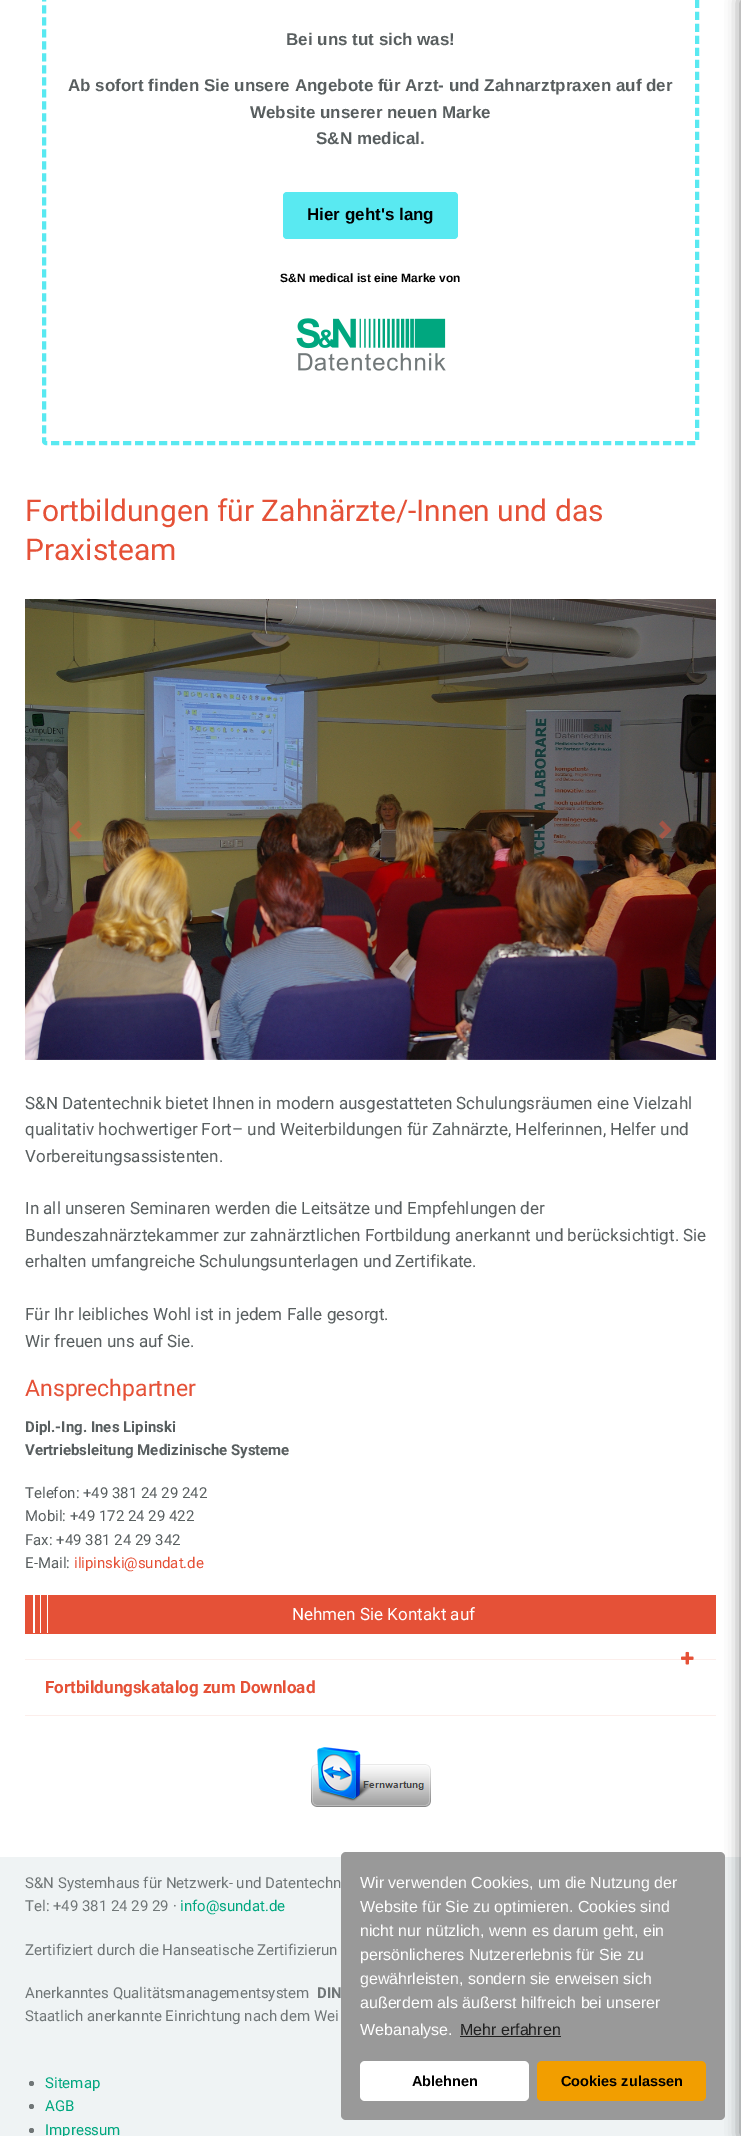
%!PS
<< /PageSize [741 2136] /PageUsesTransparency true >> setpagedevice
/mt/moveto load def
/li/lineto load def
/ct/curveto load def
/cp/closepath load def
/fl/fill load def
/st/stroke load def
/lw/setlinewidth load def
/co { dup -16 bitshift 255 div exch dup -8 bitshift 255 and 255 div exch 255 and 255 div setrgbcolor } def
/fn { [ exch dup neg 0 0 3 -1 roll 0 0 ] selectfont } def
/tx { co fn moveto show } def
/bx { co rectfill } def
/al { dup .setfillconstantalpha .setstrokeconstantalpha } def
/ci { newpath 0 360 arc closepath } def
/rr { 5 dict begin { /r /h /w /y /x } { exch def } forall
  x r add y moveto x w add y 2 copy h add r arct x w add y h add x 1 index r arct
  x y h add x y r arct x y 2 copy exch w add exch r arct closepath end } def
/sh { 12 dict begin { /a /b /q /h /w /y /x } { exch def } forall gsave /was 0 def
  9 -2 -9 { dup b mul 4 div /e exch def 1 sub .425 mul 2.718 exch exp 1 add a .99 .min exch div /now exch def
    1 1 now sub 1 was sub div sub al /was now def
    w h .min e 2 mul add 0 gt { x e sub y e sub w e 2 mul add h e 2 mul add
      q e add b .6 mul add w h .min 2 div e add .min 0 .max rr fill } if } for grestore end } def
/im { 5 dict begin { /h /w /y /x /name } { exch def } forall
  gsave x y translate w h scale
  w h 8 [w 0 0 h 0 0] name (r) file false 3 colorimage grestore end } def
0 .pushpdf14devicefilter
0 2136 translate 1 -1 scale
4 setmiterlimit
0 0 741 2136 16#FFFFFF bx
16#59E9F1 co
4 lw
[8 4] 0 setdash
46 -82 mt 695 -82 li 696 -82 697 -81 697 -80 ct 697 441 li 697 442 696 443 695 443 ct 46 443 li 45 443 44 442 44 441 ct 44 -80 li 44 -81 45 -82 46 -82 ct cp st
283 192 175 47 4 rr fl
(media/1.raw) 296 318 150 53 im
(media/2.raw) 25 599 691 461 im
0.5 al
16#E55137 co
82 824 mt 76 830 li 82 836 li 78.5 839 li 69.5 830 li 78.5 820.5 li cp fl
671.5 830 mt 662.5 839 li 659 836 li 665 830 li 659 824 li 662.5 820.5 li cp fl
1 al
25 1595 691 39 16#E55137 bx
33 1595 2 38 16#FFFFFF bx
40 1595 1 38 16#FFFFFF bx
47 1595 1 38 16#FFFFFF bx
25 1659 691 1 16#FCEEEB bx
25 1715 691 1 16#FCEEEB bx
(media/3.raw) 681 1651 13 14 im
(media/4.raw) 311 1747 120 60 im
0 1857 741 279 16#EFF3F4 bx
16#000000 co
741 0 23 2136 0 7.5 .5 sh
16#707677 co
31.5 2083.5 2.5 ci fl
31.5 2106.5 2.5 ci fl
31.5 2130.5 2.5 ci fl
16#999999 co
341 1852 384 268 5 rr fl
460 2036 101 1 16#1F1F1F bx
16#FFFFFF co
360 2061 169 40 5 rr fl
16#F29E00 co
537 2061 169 40 5 rr fl
(Bei uns tut sich was!) 286 45 /LiberationSans-Bold 17 16#585E5F tx
(Ab sofort finden Sie unsere Angebote für Arzt- und Zahnarztpraxen auf der) 68 91 /LiberationSans-Bold 17 16#585E5F tx
(Website unserer neuen Marke) 250 118 /LiberationSans-Bold 17 16#585E5F tx
(S&N medical.) 316 144 /LiberationSans-Bold 17 16#585E5F tx
(Hier geht's lang) 307 220 /LiberationSans-Bold 17 16#000000 tx
(S&N medical ist eine Marke von) 280 282 /LiberationSans-Bold 12 16#000000 tx
(Fortbildungen für Zahnärzte/-Innen und das) 25 521 /Roboto-Regular 30 16#E55137 tx
(Praxisteam) 25 560 /Roboto-Regular 30 16#E55137 tx
(S&N Datentechnik bietet Ihnen in modern ausgestatteten Schulungsräumen eine Vielzahl) 25 1109 /Roboto-Regular 17 16#585E5F tx
(qualitativ hochwertiger Fort– und Weiterbildungen für Zahnärzte, Helferinnen, Helfer und) 25 1135 /Roboto-Regular 17 16#585E5F tx
(Vorbereitungsassistenten.) 25 1162 /Roboto-Regular 17 16#585E5F tx
(In all unseren Seminaren werden die Leitsätze und Empfehlungen der) 25 1214 /Roboto-Regular 17 16#585E5F tx
(Bundeszahnärztekammer zur zahnärztlichen Fortbildung anerkannt und berücksichtigt. Sie) 25 1241 /Roboto-Regular 17 16#585E5F tx
(erhalten umfangreiche Schulungsunterlagen und Zertifikate.) 25 1267 /Roboto-Regular 17 16#585E5F tx
(Für Ihr leibliches Wohl ist in jedem Falle gesorgt.) 25 1320 /Roboto-Regular 17 16#585E5F tx
(Wir freuen uns auf Sie.) 25 1347 /Roboto-Regular 17 16#585E5F tx
(Ansprechpartner) 25 1396 /Roboto-Regular 23 16#E55137 tx
(Dipl.-Ing. Ines Lipinski) 25 1432 /Roboto-Bold 15 16#585E5F tx
(Vertriebsleitung Medizinische Systeme) 25 1455 /Roboto-Bold 15 16#585E5F tx
(Telefon: +49 381 24 29 242) 25 1498 /Roboto-Regular 15 16#585E5F tx
(Mobil: +49 172 24 29 422) 25 1521 /Roboto-Regular 15 16#585E5F tx
(Fax: +49 381 24 29 342) 25 1545 /Roboto-Regular 15 16#585E5F tx
(E-Mail:) 25 1568 /Roboto-Regular 15 16#585E5F tx
(ilipinski@sundat.de) 74 1568 /Roboto-Regular 15 16#E55137 tx
(Nehmen Sie Kontakt auf) 292 1620 /Roboto-Regular 17 16#FFFFFF tx
(Fortbildungskatalog zum Download) 45 1693 /Roboto-Bold 17 16#E55137 tx
(S&N Systemhaus für Netzwerk- und Datentechn) 25 1888 /Roboto-Regular 15 16#707677 tx
(Tel: +49 381 24 29 29 ·) 25 1911 /Roboto-Regular 15 16#707677 tx
(info@sundat.de) 180 1911 /Roboto-Regular 15 16#00A77F tx
(Zertifiziert durch die Hanseatische Zertifizierun) 25 1955 /Roboto-Regular 15 16#707677 tx
(Anerkanntes Qualitätsmanagementsystem) 25 1998 /Roboto-Regular 15 16#707677 tx
(DIN) 317 1998 /Roboto-Bold 15 16#707677 tx
(Staatlich anerkannte Einrichtung nach dem Wei) 25 2021 /Roboto-Regular 15 16#707677 tx
(Sitemap) 45 2088 /Roboto-Regular 15 16#00A77F tx
(AGB) 45 2111 /Roboto-Regular 15 16#00A77F tx
(Impressum) 45 2135 /Roboto-Regular 15 16#00A77F tx
(Wir verwenden Cookies, um die Nutzung der) 360 1888 /LiberationSans-Regular 16 16#FFFFFF tx
(Website für Sie zu optimieren. Cookies sind) 360 1912 /LiberationSans-Regular 16 16#FFFFFF tx
(nicht nur nützlich, wenn es darum geht, ein) 360 1936 /LiberationSans-Regular 16 16#FFFFFF tx
(persönlicheres Nutzererlebnis für Sie zu) 360 1960 /LiberationSans-Regular 16 16#FFFFFF tx
(gewährleisten, sondern sie erweisen sich) 360 1984 /LiberationSans-Regular 16 16#FFFFFF tx
(außerdem als äußerst hilfreich bei unserer) 360 2008 /LiberationSans-Regular 16 16#FFFFFF tx
(Webanalyse.) 360 2035 /LiberationSans-Regular 16 16#FFFFFF tx
(Mehr erfahren) 460 2035 /LiberationSans-Regular 16 16#1F1F1F tx
(Ablehnen) 412 2086 /LiberationSans-Bold 14.5 16#000000 tx
(Cookies zulassen) 561 2086 /LiberationSans-Bold 14.5 16#000000 tx
.poppdf14devicefilter showpage
